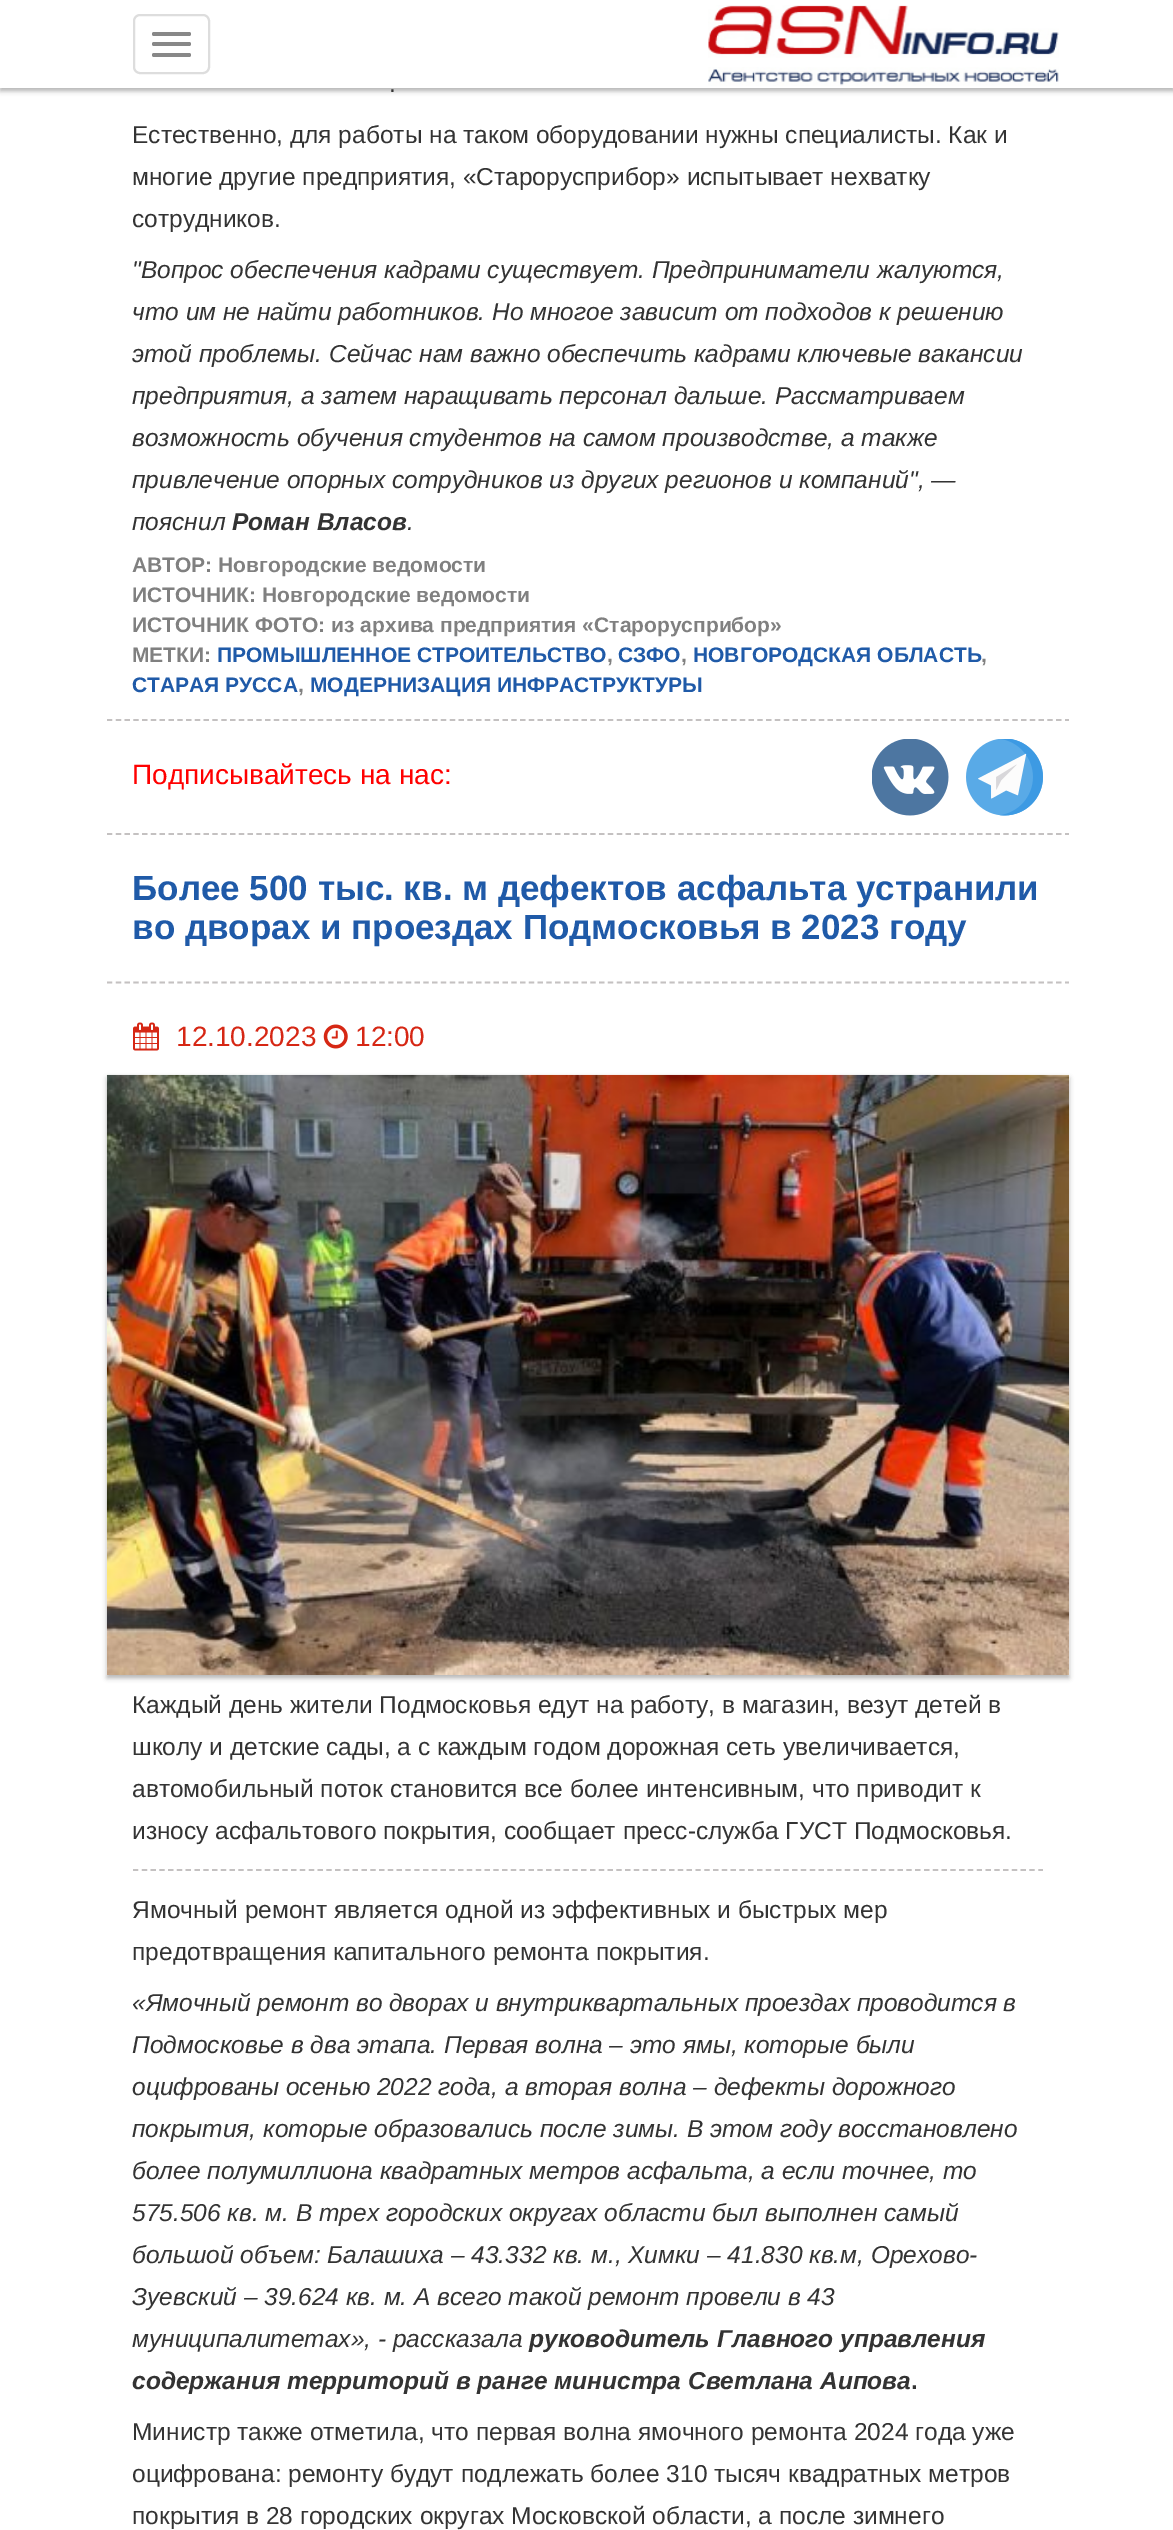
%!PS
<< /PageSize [1173 2530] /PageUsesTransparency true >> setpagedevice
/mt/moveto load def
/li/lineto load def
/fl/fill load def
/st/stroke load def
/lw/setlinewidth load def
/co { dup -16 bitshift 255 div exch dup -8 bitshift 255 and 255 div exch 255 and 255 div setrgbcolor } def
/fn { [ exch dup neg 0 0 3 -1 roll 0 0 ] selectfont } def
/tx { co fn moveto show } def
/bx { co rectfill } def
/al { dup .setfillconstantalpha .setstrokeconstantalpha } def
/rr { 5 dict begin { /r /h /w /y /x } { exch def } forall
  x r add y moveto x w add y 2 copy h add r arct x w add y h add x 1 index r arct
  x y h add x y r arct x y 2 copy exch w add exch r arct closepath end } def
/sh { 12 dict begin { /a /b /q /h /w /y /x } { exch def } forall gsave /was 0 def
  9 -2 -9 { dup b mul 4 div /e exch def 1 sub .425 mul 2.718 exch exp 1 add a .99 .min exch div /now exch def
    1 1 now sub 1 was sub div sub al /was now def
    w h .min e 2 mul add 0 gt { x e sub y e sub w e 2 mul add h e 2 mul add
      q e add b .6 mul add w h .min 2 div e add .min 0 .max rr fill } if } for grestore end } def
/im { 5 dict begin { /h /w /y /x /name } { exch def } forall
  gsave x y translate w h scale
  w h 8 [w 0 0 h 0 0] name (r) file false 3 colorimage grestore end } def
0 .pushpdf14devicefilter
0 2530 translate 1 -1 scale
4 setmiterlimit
0 0 1173 2530 16#FFFFFF bx
16#000000 co
0 4 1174 87 0 2.5 .3 sh
0 0 1173 88 16#FFFFFF bx
16#DDDDDD co
2 lw
134 15 75 58 6 rr st
16#888888 co
152 32 39 4 2 rr fl
152 42 39 4 2 rr fl
152 53 39 4 2 rr fl
(media/1.raw) 708 5 351 81 im
16#C4C1C1 co
1.8 lw
[5.25 3.54] 0 setdash
107 720 mt 1069 720 li st
(media/2.raw) 872 739 77 77 im
(media/3.raw) 966 739 77 77 im
107 834 mt 1069 834 li st
107 982.5 mt 1069 982.5 li st
(media/4.raw) 133 1022 26 29 im
(media/5.raw) 323 1024 25 25 im
16#000000 co
107 1078 962 600 0 2.5 .3 sh
(media/6.raw) 106 1074 964 601 im
16#C4C1C1 co
133 1870 mt 1043 1870 li st
(.) 389 92 /LiberationSans-Regular 24.5 16#333333 tx
(Естественно, для работы на таком оборудовании нужны специалисты. Как и) 132 143 /LiberationSans-Regular 24.5 16#333333 tx
(многие другие предприятия, «Старорусприбор» испытывает нехватку) 132 185 /LiberationSans-Regular 24.5 16#333333 tx
(сотрудников.) 132 227 /LiberationSans-Regular 24.5 16#333333 tx
("Вопрос обеспечения кадрами существует. Предприниматели жалуются,) 132 278 /LiberationSans-Italic 24.5 16#333333 tx
(что им не найти работников. Но многое зависит от подходов к решению) 132 320 /LiberationSans-Italic 24.5 16#333333 tx
(этой проблемы. Сейчас нам важно обеспечить кадрами ключевые вакансии) 132 362 /LiberationSans-Italic 24.5 16#333333 tx
(предприятия, а затем наращивать персонал дальше. Рассматриваем) 132 404 /LiberationSans-Italic 24.5 16#333333 tx
(возможность обучения студентов на самом производстве, а также) 132 446 /LiberationSans-Italic 24.5 16#333333 tx
(привлечение опорных сотрудников из других регионов и компаний", —) 132 488 /LiberationSans-Italic 24.5 16#333333 tx
(пояснил) 132 530 /LiberationSans-Italic 24.5 16#333333 tx
(Роман Власов) 232 530 /LiberationSans-BoldItalic 24.5 16#333333 tx
(.) 407 530 /LiberationSans-Italic 24.5 16#333333 tx
(АВТОР: Новгородские ведомости) 132 572 /LiberationSans-Bold 21 16#808080 tx
(ИСТОЧНИК: Новгородские ведомости) 132 602 /LiberationSans-Bold 21 16#808080 tx
(ИСТОЧНИК ФОТО: из архива предприятия «Старорусприбор») 132 632 /LiberationSans-Bold 21 16#808080 tx
(МЕТКИ:) 132 662 /LiberationSans-Bold 21 16#808080 tx
(ПРОМЫШЛЕННОЕ СТРОИТЕЛЬСТВО) 217 662 /LiberationSans-Bold 21 16#1F5AA8 tx
(,) 607 662 /LiberationSans-Bold 21 16#808080 tx
(СЗФО) 618 662 /LiberationSans-Bold 21 16#1F5AA8 tx
(,) 681 662 /LiberationSans-Bold 21 16#808080 tx
(НОВГОРОДСКАЯ ОБЛАСТЬ) 693 662 /LiberationSans-Bold 21 16#1F5AA8 tx
(,) 981 662 /LiberationSans-Bold 21 16#808080 tx
(СТАРАЯ РУССА) 132 692 /LiberationSans-Bold 21 16#1F5AA8 tx
(,) 298 692 /LiberationSans-Bold 21 16#808080 tx
(МОДЕРНИЗАЦИЯ ИНФРАСТРУКТУРЫ) 310 692 /LiberationSans-Bold 21 16#1F5AA8 tx
(Подписывайтесь на нас:) 132 784 /LiberationSans-Regular 28 16#FF0000 tx
(Более 500 тыс. кв. м дефектов асфальта устранили) 132 900 /LiberationSans-Bold 35 16#1F5AA8 tx
(во дворах и проездах Подмосковья в 2023 году) 132 939 /LiberationSans-Bold 35 16#1F5AA8 tx
(12.10.2023) 176 1046 /LiberationSans-Regular 28 16#D62714 tx
(12:00) 355 1046 /LiberationSans-Regular 28 16#D62714 tx
(Каждый день жители Подмосковья едут на работу, в магазин, везут детей в) 132 1713 /LiberationSans-Regular 24.5 16#333333 tx
(школу и детские сады, а с каждым годом дорожная сеть увеличивается,) 132 1755 /LiberationSans-Regular 24.5 16#333333 tx
(автомобильный поток становится все более интенсивным, что приводит к) 132 1797 /LiberationSans-Regular 24.5 16#333333 tx
(износу асфальтового покрытия, сообщает пресс-служба ГУСТ Подмосковья.) 132 1839 /LiberationSans-Regular 24.5 16#333333 tx
(Ямочный ремонт является одной из эффективных и быстрых мер) 132 1918 /LiberationSans-Regular 24.5 16#333333 tx
(предотвращения капитального ремонта покрытия.) 132 1960 /LiberationSans-Regular 24.5 16#333333 tx
(«Ямочный ремонт во дворах и внутриквартальных проездах проводится в) 132 2011 /LiberationSans-Italic 24.5 16#333333 tx
(Подмосковье в два этапа. Первая волна – это ямы, которые были) 132 2053 /LiberationSans-Italic 24.5 16#333333 tx
(оцифрованы осенью 2022 года, а вторая волна – дефекты дорожного) 132 2095 /LiberationSans-Italic 24.5 16#333333 tx
(покрытия, которые образовались после зимы. В этом году восстановлено) 132 2137 /LiberationSans-Italic 24.5 16#333333 tx
(более полумиллиона квадратных метров асфальта, а если точнее, то) 132 2179 /LiberationSans-Italic 24.5 16#333333 tx
(575.506 кв. м. В трех городских округах области был выполнен самый) 132 2221 /LiberationSans-Italic 24.5 16#333333 tx
(большой объем: Балашиха – 43.332 кв. м., Химки – 41.830 кв.м, Орехово-) 132 2263 /LiberationSans-Italic 24.5 16#333333 tx
(Зуевский – 39.624 кв. м. А всего такой ремонт провели в 43) 132 2305 /LiberationSans-Italic 24.5 16#333333 tx
(муниципалитетах», - рассказала) 132 2347 /LiberationSans-Italic 24.5 16#333333 tx
(руководитель Главного управления) 529 2347 /LiberationSans-BoldItalic 24.5 16#333333 tx
(содержания территорий в ранге министра Светлана Аипова) 132 2389 /LiberationSans-BoldItalic 24.5 16#333333 tx
(.) 911 2389 /LiberationSans-Bold 24.5 16#333333 tx
(Министр также отметила, что первая волна ямочного ремонта 2024 года уже) 132 2440 /LiberationSans-Regular 24.5 16#333333 tx
(оцифрована: ремонту будут подлежать более 310 тысяч квадратных метров) 132 2482 /LiberationSans-Regular 24.5 16#333333 tx
(покрытия в 28 городских округах Московской области, а после зимнего) 132 2524 /LiberationSans-Regular 24.5 16#333333 tx
.poppdf14devicefilter showpage
